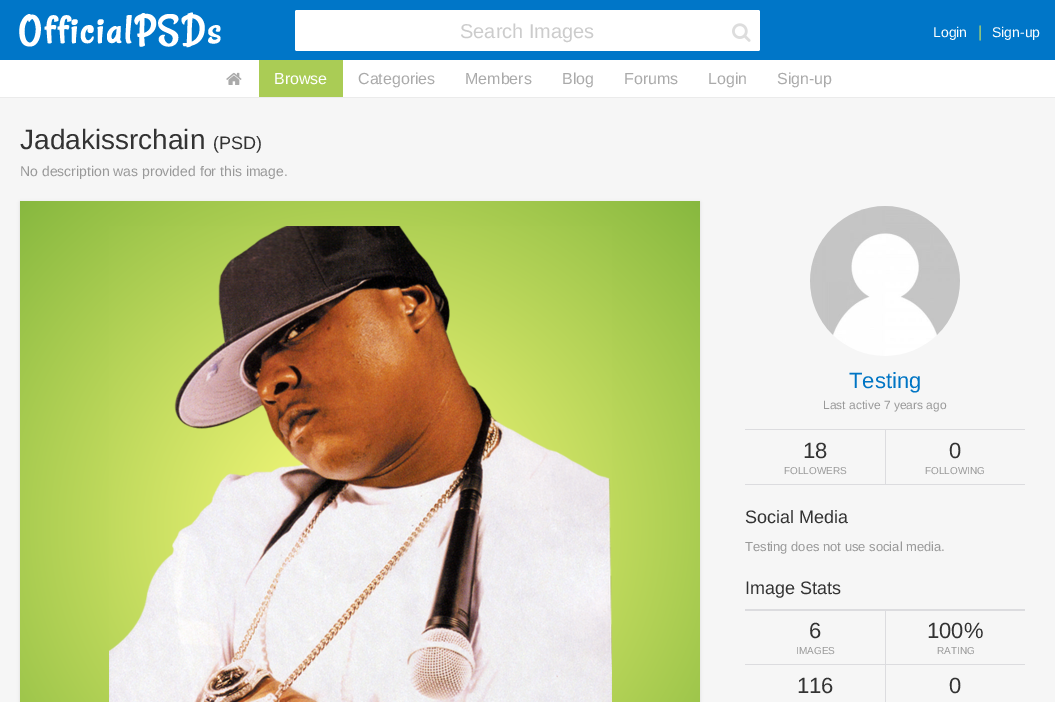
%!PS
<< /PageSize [1055 702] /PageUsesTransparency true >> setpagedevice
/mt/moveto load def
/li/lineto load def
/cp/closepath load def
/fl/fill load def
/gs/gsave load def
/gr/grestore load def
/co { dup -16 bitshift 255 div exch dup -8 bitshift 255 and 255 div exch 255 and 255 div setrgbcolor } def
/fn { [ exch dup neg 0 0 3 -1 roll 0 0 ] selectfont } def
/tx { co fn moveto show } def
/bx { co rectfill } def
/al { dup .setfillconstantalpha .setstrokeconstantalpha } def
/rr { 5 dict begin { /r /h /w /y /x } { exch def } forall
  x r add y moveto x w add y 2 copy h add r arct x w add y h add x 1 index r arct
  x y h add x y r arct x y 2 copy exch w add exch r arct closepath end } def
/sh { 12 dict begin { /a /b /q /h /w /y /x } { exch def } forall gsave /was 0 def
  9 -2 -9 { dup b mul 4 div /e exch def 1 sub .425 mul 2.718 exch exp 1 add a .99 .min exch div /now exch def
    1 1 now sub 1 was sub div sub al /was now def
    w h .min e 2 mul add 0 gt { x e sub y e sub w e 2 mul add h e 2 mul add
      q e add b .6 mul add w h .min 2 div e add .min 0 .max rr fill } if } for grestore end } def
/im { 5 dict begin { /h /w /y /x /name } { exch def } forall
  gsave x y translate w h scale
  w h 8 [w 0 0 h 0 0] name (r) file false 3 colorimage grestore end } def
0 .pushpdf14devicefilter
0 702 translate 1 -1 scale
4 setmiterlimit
0 0 1055 702 16#F6F6F6 bx
0 0 1055 60 16#0076C8 bx
(media/1.raw) 19 12 202 36 im
16#FFFFFF co
295 10 465 41 2 rr fl
(media/2.raw) 732 23 19 19 im
0 60 1055 37 16#FFFFFF bx
0 97 1055 1 16#EBEBEB bx
(media/3.raw) 226 72 16 13 im
259 60 84 37 16#AACC55 bx
16#000000 co
20 202 680 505 0 1.5 .1 sh
gs 20 201 mt 700 201 li 700 702 li 20 702 li cp clip newpath 360 526 translate 481 460 scale
<< /ShadingType 3 /ColorSpace /DeviceRGB /Coords [0 0 0 0 0 1] /Extend [true true] /Function << /FunctionType 2 /Domain [0 1] /C0 [.996 .996 .494] /C1 [.529 .722 .247] /N 1 >> >> shfill gr
(media/4.raw) 109 226 503 476 im
(media/5.raw) 810 206 150 150 im
745 429 280 1 16#DCDCDF bx
745 484 280 1 16#DCDCDF bx
885 430 1 54 16#DCDCDF bx
745 609 280 2 16#DCDCDF bx
885 610 1 54 16#DCDCDF bx
745 664 280 1 16#DCDCDF bx
885 664 1 38 16#DCDCDF bx
(Search Images) 460 38 /LiberationSans-Regular 20 16#CCCCCC tx
(Login) 933 37 /LiberationSans-Regular 14 16#FFFFFF tx
(|) 978 37 /LiberationSans-Regular 16 16#BBDD66 tx
(Sign-up) 992 37 /LiberationSans-Regular 14 16#FFFFFF tx
(Browse) 274 84 /LiberationSans-Regular 16 16#FFFFFF tx
(Categories) 358 84 /LiberationSans-Regular 16 16#AAAAAA tx
(Members) 465 84 /LiberationSans-Regular 16 16#AAAAAA tx
(Blog) 562 84 /LiberationSans-Regular 16 16#AAAAAA tx
(Forums) 624 84 /LiberationSans-Regular 16 16#AAAAAA tx
(Login) 708 84 /LiberationSans-Regular 16 16#AAAAAA tx
(Sign-up) 777 84 /LiberationSans-Regular 16 16#AAAAAA tx
(Jadakissrchain) 20 149 /LiberationSans-Regular 28 16#333333 tx
(\(PSD\)) 213 149 /LiberationSans-Regular 18 16#333333 tx
(No description was provided for this image.) 20 176 /LiberationSans-Regular 14 16#999999 tx
(Testing) 849 388 /LiberationSans-Regular 22 16#0075C4 tx
(Last active 7 years ago) 823 409 /LiberationSans-Regular 12 16#999999 tx
(18) 803 458 /LiberationSans-Regular 22 16#333333 tx
(FOLLOWERS) 784 474 /LiberationSans-Regular 10 16#999999 tx
(0) 949 458 /LiberationSans-Regular 22 16#333333 tx
(FOLLOWING) 925 474 /LiberationSans-Regular 10 16#999999 tx
(Social Media) 745 523 /LiberationSans-Regular 18 16#333333 tx
(Testing does not use social media.) 745 551 /LiberationSans-Regular 13 16#999999 tx
(Image Stats) 745 594 /LiberationSans-Regular 18 16#333333 tx
(6) 809 638 /LiberationSans-Regular 22 16#333333 tx
(IMAGES) 796 654 /LiberationSans-Regular 10 16#999999 tx
(100%) 927 638 /LiberationSans-Regular 22 16#333333 tx
(RATING) 937 654 /LiberationSans-Regular 10 16#999999 tx
(116) 797 693 /LiberationSans-Regular 22 16#333333 tx
(0) 949 693 /LiberationSans-Regular 22 16#333333 tx
.poppdf14devicefilter showpage
